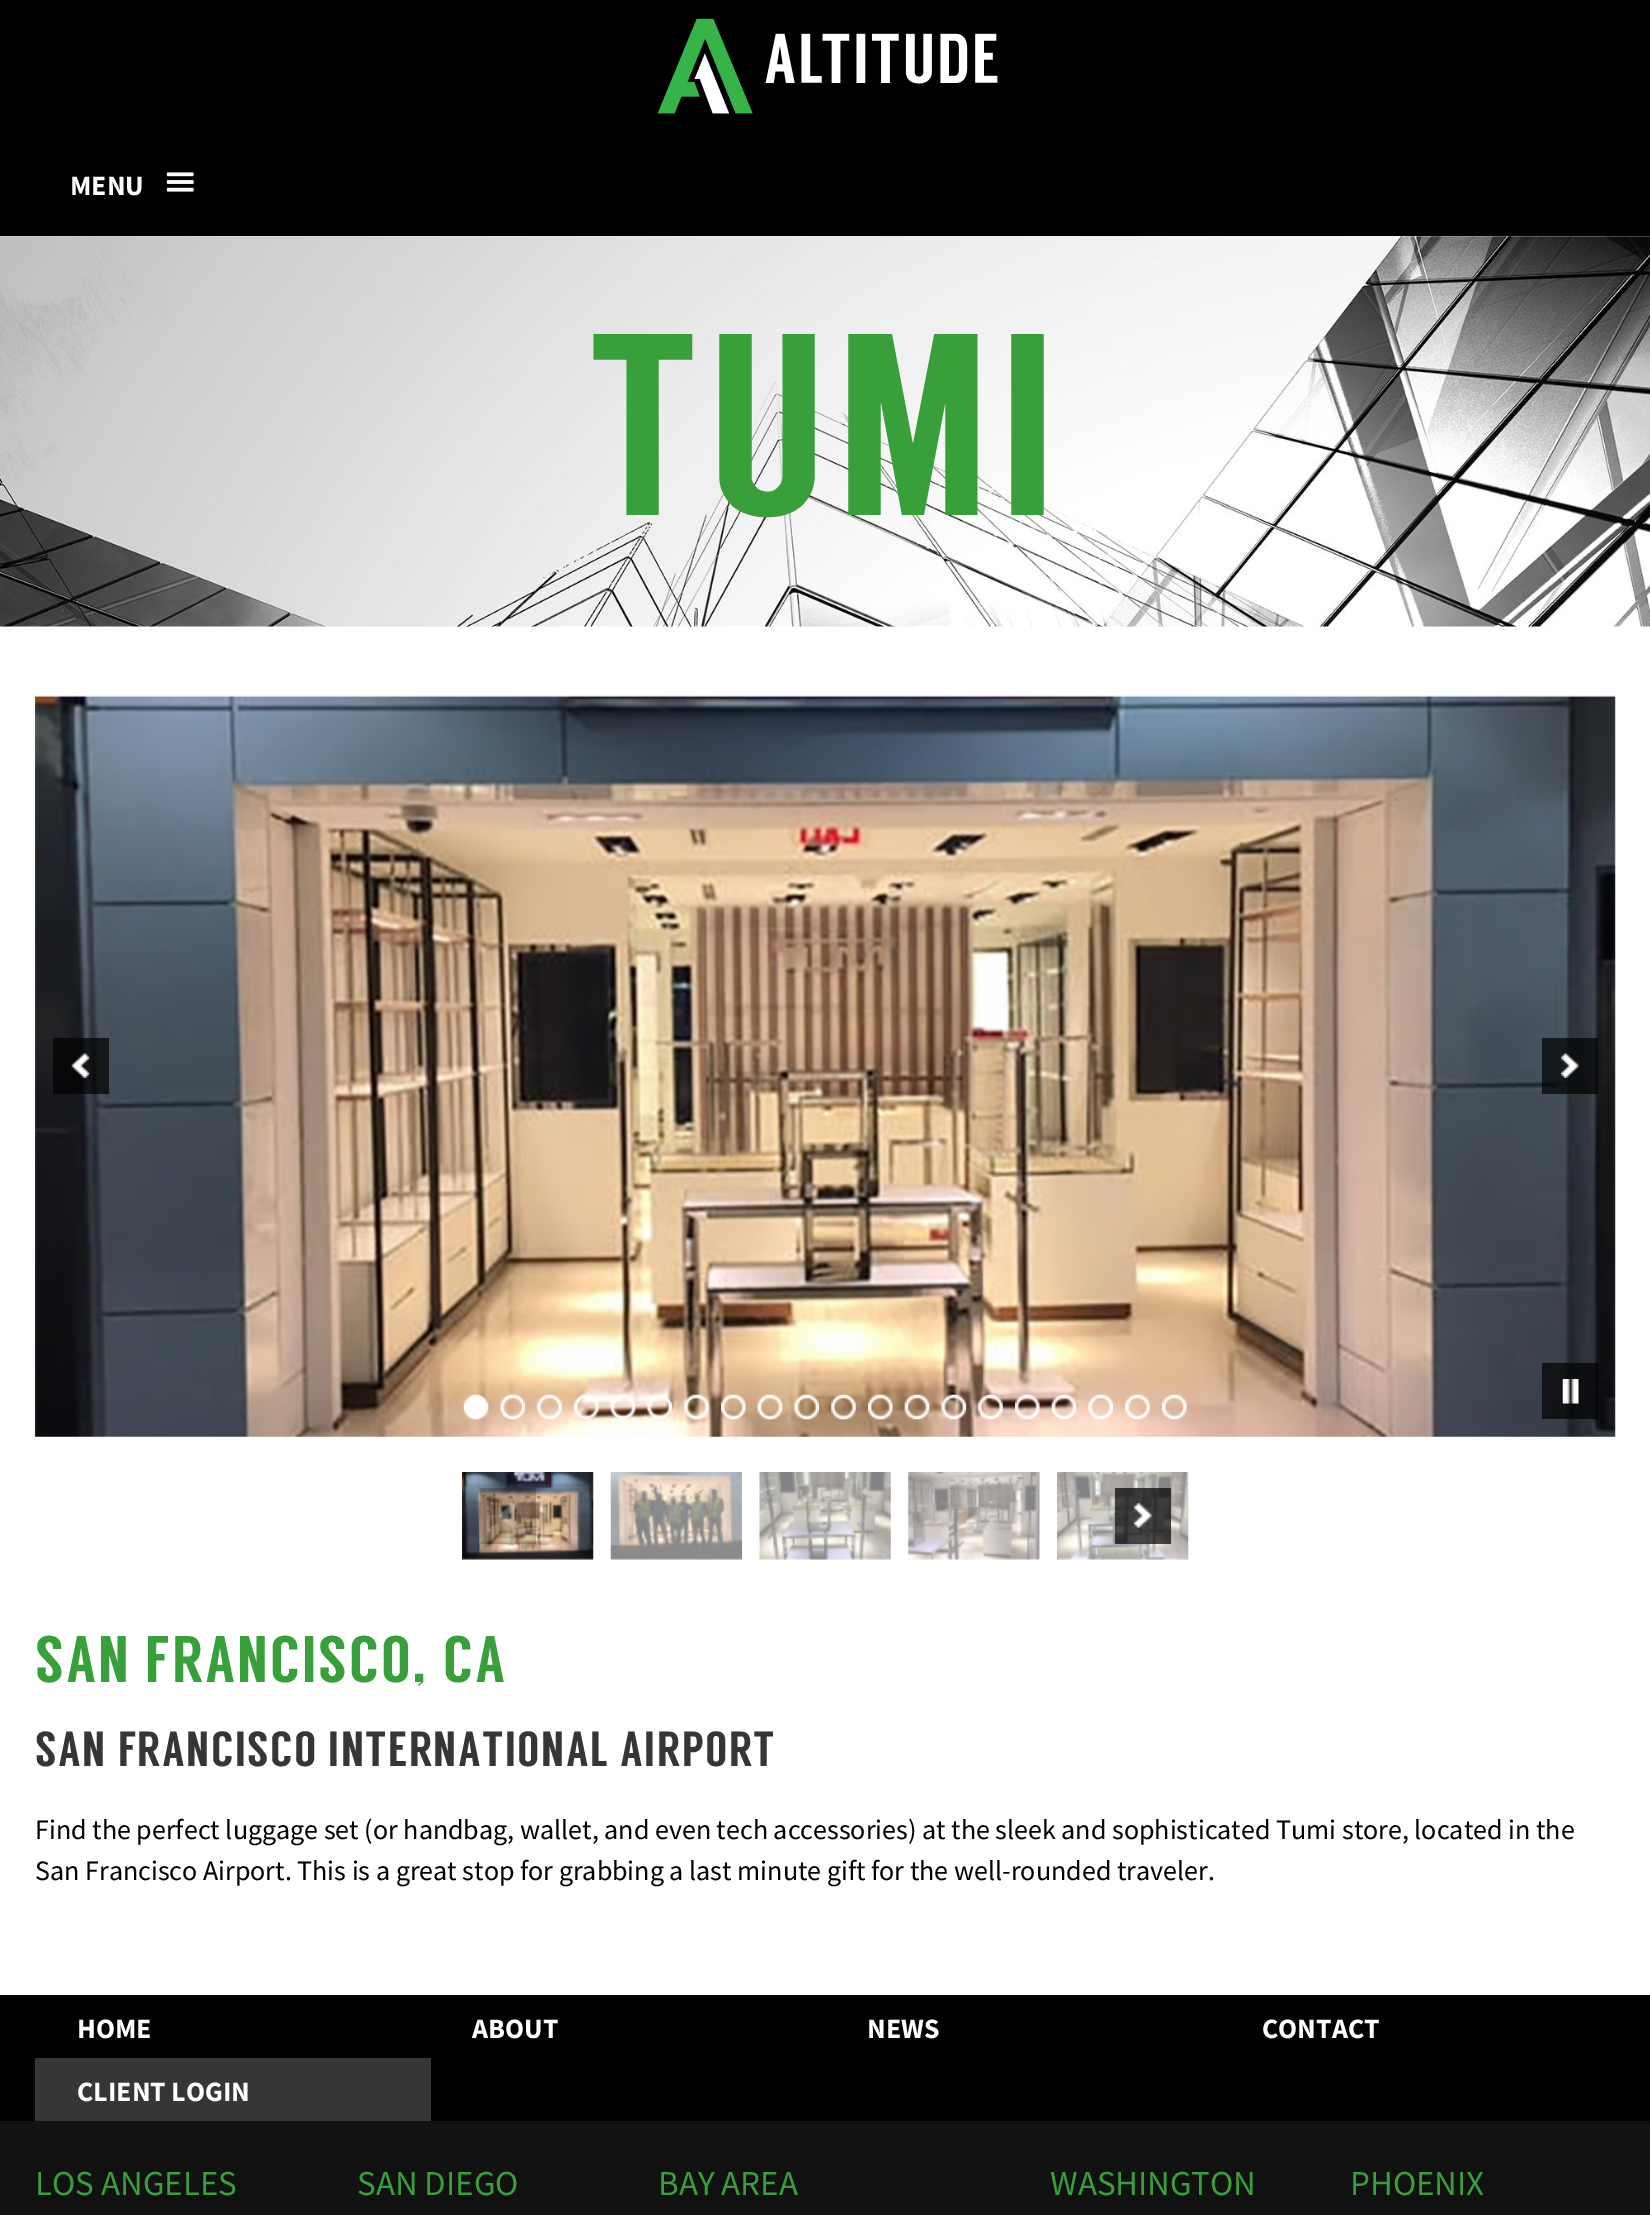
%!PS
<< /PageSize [1650 2215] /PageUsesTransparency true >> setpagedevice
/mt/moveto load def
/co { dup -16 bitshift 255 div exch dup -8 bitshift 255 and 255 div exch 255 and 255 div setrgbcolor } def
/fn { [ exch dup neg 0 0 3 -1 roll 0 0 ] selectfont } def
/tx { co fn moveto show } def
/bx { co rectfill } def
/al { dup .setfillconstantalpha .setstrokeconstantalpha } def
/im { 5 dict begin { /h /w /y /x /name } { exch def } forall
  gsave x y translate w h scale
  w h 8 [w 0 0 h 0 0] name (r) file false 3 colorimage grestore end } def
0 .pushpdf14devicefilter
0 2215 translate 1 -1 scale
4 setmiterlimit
0 0 1650 2215 16#FFFFFF bx
0 0 1650 236 16#000000 bx
(media/1.raw) 657 18 341 96 im
(media/2.raw) 166 172 28 20 im
(media/3.raw) 0 236 1650 391 im
(media/4.raw) 35 695 1581 742 im
0.7 al
53 1038 56 56 16#000000 bx
1 al
(media/5.raw) 71 1053 19 25 im
0.7 al
1542 1038 56 56 16#000000 bx
1 al
(media/6.raw) 1561 1053 18 25 im
(media/7.raw) 463 1394 26 26 im
(media/8.raw) 500 1394 25 26 im
(media/9.raw) 537 1394 25 26 im
(media/10.raw) 574 1394 25 26 im
(media/11.raw) 610 1394 26 26 im
(media/12.raw) 647 1394 25 26 im
(media/13.raw) 684 1394 25 26 im
(media/14.raw) 721 1394 25 26 im
(media/15.raw) 757 1394 26 26 im
(media/16.raw) 794 1394 25 26 im
(media/17.raw) 831 1394 25 26 im
(media/18.raw) 868 1394 25 26 im
(media/19.raw) 904 1394 26 26 im
(media/20.raw) 941 1394 25 26 im
(media/21.raw) 978 1394 25 26 im
(media/22.raw) 1015 1394 25 26 im
(media/23.raw) 1051 1394 26 26 im
(media/24.raw) 1088 1394 25 26 im
(media/25.raw) 1125 1394 25 26 im
(media/26.raw) 1162 1394 25 26 im
0.7 al
1542 1363 56 56 16#000000 bx
1 al
(media/27.raw) 1562 1379 17 25 im
(media/28.raw) 462 1472 132 88 im
(media/29.raw) 610 1472 132 88 im
(media/30.raw) 759 1472 132 88 im
(media/31.raw) 908 1472 132 88 im
(media/32.raw) 1057 1472 132 88 im
0.21 al
480 1488 56 56 16#000000 bx
1 al
(media/33.raw) 498 1503 19 25 im
0.7 al
1115 1488 56 56 16#000000 bx
1 al
(media/34.raw) 1134 1503 18 25 im
0 1995 1650 126 16#000000 bx
35 2058 396 63 16#363636 bx
0 2121 1650 94 16#111111 bx
(MENU) 70 195 /SourceSansPro-Bold 28 16#FFFFFF tx
/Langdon-Regular 332 fn
16#389F3B co
587 515 mt 8.5 0 (TUMI) ashow
/Langdon-Regular 84 fn
35 1682 mt 2.1 0 (SAN FRANCISCO, CA) ashow
/Langdon-Regular 63 fn
16#363636 co
35 1766 mt 1.55 0 (SAN FRANCISCO INTERNATIONAL AIRPORT) ashow
(Find the perfect luggage set \(or handbag, wallet, and even tech accessories\) at the sleek and sophisticated Tumi store, located in the) 35 1839 /SourceSansPro-Regular 28 16#000000 tx
(San Francisco Airport. This is a great stop for grabbing a last minute gift for the well-rounded traveler.) 35 1880 /SourceSansPro-Regular 28 16#000000 tx
(HOME) 77 2038 /SourceSansPro-Bold 28 16#FFFFFF tx
(ABOUT) 472 2038 /SourceSansPro-Bold 28 16#FFFFFF tx
(NEWS) 867 2038 /SourceSansPro-Bold 28 16#FFFFFF tx
(CONTACT) 1262 2038 /SourceSansPro-Bold 28 16#FFFFFF tx
(CLIENT LOGIN) 77 2101 /SourceSansPro-Bold 28 16#FFFFFF tx
(LOS ANGELES) 35 2195 /SourceSansPro-Regular 35 16#389F3B tx
(SAN DIEGO) 357 2195 /SourceSansPro-Regular 35 16#389F3B tx
(BAY AREA) 658 2195 /SourceSansPro-Regular 35 16#389F3B tx
(WASHINGTON) 1050 2195 /SourceSansPro-Regular 35 16#389F3B tx
(PHOENIX) 1350 2195 /SourceSansPro-Regular 35 16#389F3B tx
.poppdf14devicefilter showpage
